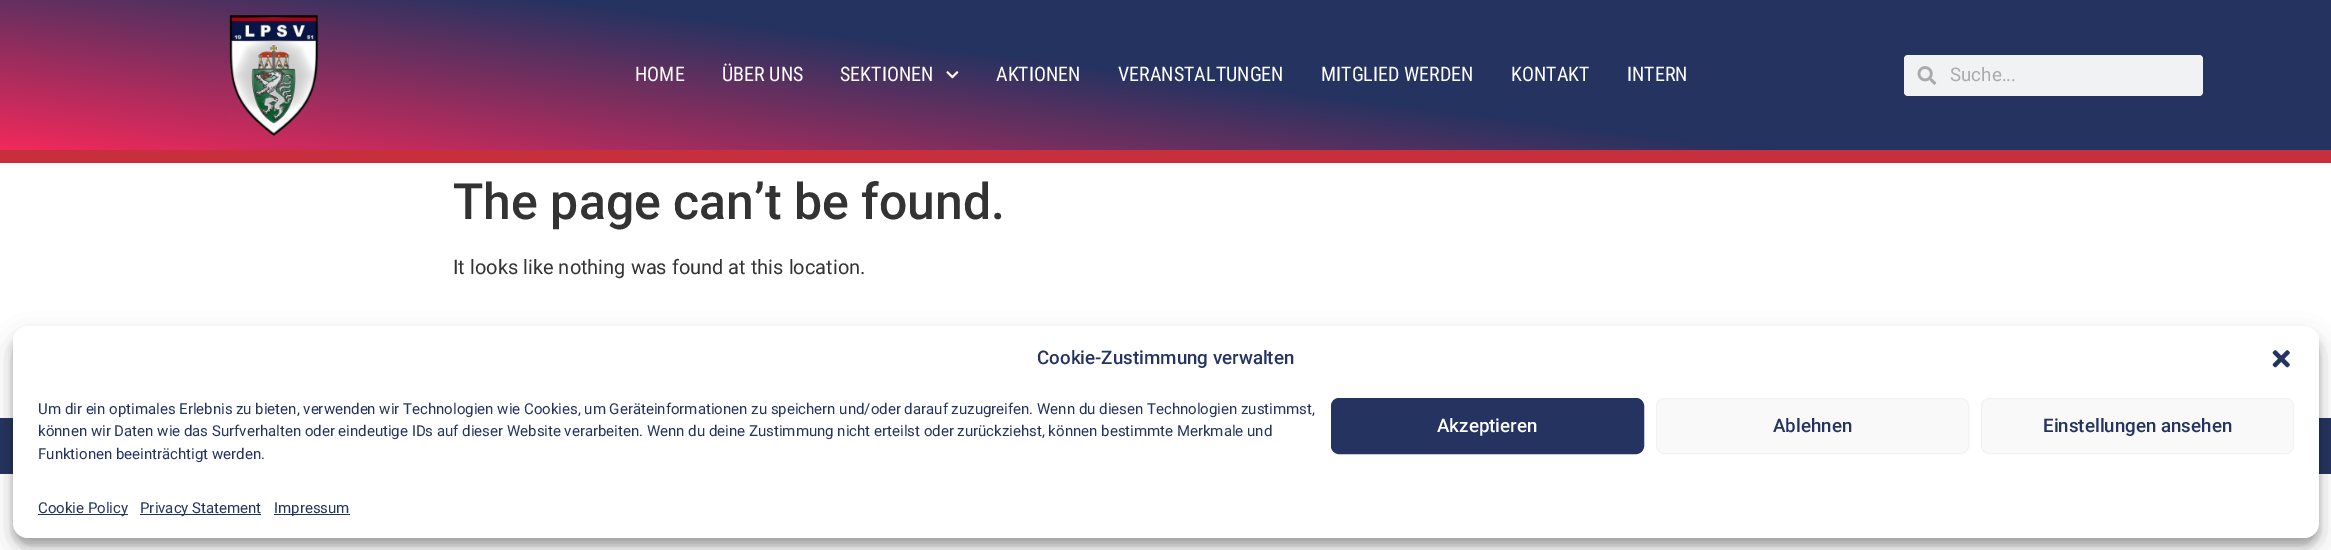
%!PS
<< /PageSize [2331 550] /PageUsesTransparency true >> setpagedevice
/mt/moveto load def
/li/lineto load def
/cp/closepath load def
/fl/fill load def
/st/stroke load def
/gs/gsave load def
/gr/grestore load def
/co { dup -16 bitshift 255 div exch dup -8 bitshift 255 and 255 div exch 255 and 255 div setrgbcolor } def
/fn { [ exch dup neg 0 0 3 -1 roll 0 0 ] selectfont } def
/tx { co fn moveto show } def
/bx { co rectfill } def
/al { dup .setfillconstantalpha .setstrokeconstantalpha } def
/rr { 5 dict begin { /r /h /w /y /x } { exch def } forall
  x r add y moveto x w add y 2 copy h add r arct x w add y h add x 1 index r arct
  x y h add x y r arct x y 2 copy exch w add exch r arct closepath end } def
/sh { 12 dict begin { /a /b /q /h /w /y /x } { exch def } forall gsave /was 0 def
  9 -2 -9 { dup b mul 4 div /e exch def 1 sub .425 mul 2.718 exch exp 1 add a .99 .min exch div /now exch def
    1 1 now sub 1 was sub div sub al /was now def
    w h .min e 2 mul add 0 gt { x e sub y e sub w e 2 mul add h e 2 mul add
      q e add b .6 mul add w h .min 2 div e add .min 0 .max rr fill } if } for grestore end } def
/im { 5 dict begin { /h /w /y /x /name } { exch def } forall
  gsave x y translate w h scale
  w h 8 [w 0 0 h 0 0] name (r) file false 3 colorimage grestore end } def
0 .pushpdf14devicefilter
0 550 translate 1 -1 scale
4 setmiterlimit
0 0 2331 550 16#FFFFFF bx
gs 0 0 mt 2331 0 li 2331 150 li 0 150 li cp clip newpath
<< /ShadingType 2 /ColorSpace /DeviceRGB /Coords [1192 -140 1139 290] /Extend [true true] /Function << /FunctionType 3 /Domain [0 1] /Functions [<< /FunctionType 2 /Domain [0 1] /C0 [.145 .2 .38] /C1 [.145 .2 .38] /N 1 >> << /FunctionType 2 /Domain [0 1] /C0 [.145 .2 .38] /C1 [.949 .161 .357] /N 1 >>] /Bounds [.5] /Encode [0 1 0 1] >> >> shfill gr
0 150 2331 13 16#C72F3D bx
(media/1.raw) 229 15 90 121 im
(media/2.raw) 946 71 13 8 im
16#F1F2F3 co
1904 55 299 41 4 rr fl
(media/3.raw) 1917 66 20 19 im
0 418 2331 56 16#253361 bx
16#000000 co
13 334 2306 211 15 4 .23 sh
13 339 2306 211 15 12.5 .19 sh
16#FFFFFF co
13 326 2306 212 15 rr fl
(media/4.raw) 2272 350 18 18 im
16#253361 co
1331.5 398.5 312 55 7.5 rr gs fl gr
st
16#F9F9F9 co
1656.5 398.5 312 55 7.5 rr gs fl gr
16#F2F2F2 co
st
16#F9F9F9 co
1981.5 398.5 312 55 7.5 rr gs fl gr
16#F2F2F2 co
st
38 514 90 1 16#253361 bx
140 514 121 1 16#253361 bx
274 514 76 1 16#253361 bx
(HOME) 635 81 /RobotoCondensed-Regular 20 16#FFFFFF tx
(ÜBER UNS) 722 81 /RobotoCondensed-Regular 20 16#FFFFFF tx
(SEKTIONEN) 840 81 /RobotoCondensed-Regular 20 16#FFFFFF tx
(AKTIONEN) 996 81 /RobotoCondensed-Regular 20 16#FFFFFF tx
(VERANSTALTUNGEN) 1118 81 /RobotoCondensed-Regular 20 16#FFFFFF tx
(MITGLIED WERDEN) 1321 81 /RobotoCondensed-Regular 20 16#FFFFFF tx
(KONTAKT) 1511 81 /RobotoCondensed-Regular 20 16#FFFFFF tx
(INTERN) 1627 81 /RobotoCondensed-Regular 20 16#FFFFFF tx
(Suche...) 1950 81 /Roboto-Regular 18.75 16#AAAAAA tx
(The page can’t be found.) 453 219 /Roboto-Medium 50 16#333333 tx
(It looks like nothing was found at this location.) 453 274 /Roboto-Regular 20 16#333333 tx
(Cookie-Zustimmung verwalten) 1037 364 /Roboto-Medium 18.75 16#253361 tx
(Um dir ein optimales Erlebnis zu bieten, verwenden wir Technologien wie Cookies, um Geräteinformationen zu speichern und/oder darauf zuzugreifen. Wenn du diesen Technologien zustimmst,) 38 414 /Roboto-Regular 15 16#253361 tx
(können wir Daten wie das Surfverhalten oder eindeutige IDs auf dieser Website verarbeiten. Wenn du deine Zustimmung nicht erteilst oder zurückziehst, können bestimmte Merkmale und) 38 436 /Roboto-Regular 15 16#253361 tx
(Funktionen beeinträchtigt werden.) 38 459 /Roboto-Regular 15 16#253361 tx
(Akzeptieren) 1437 432 /Roboto-Medium 18.75 16#FFFFFF tx
(Ablehnen) 1773 432 /Roboto-Medium 18.75 16#253361 tx
(Einstellungen ansehen) 2043 432 /Roboto-Medium 18.75 16#253361 tx
(Cookie Policy) 38 513 /Roboto-Regular 15 16#253361 tx
(Privacy Statement) 140 513 /Roboto-Regular 15 16#253361 tx
(Impressum) 274 513 /Roboto-Regular 15 16#253361 tx
.poppdf14devicefilter showpage
